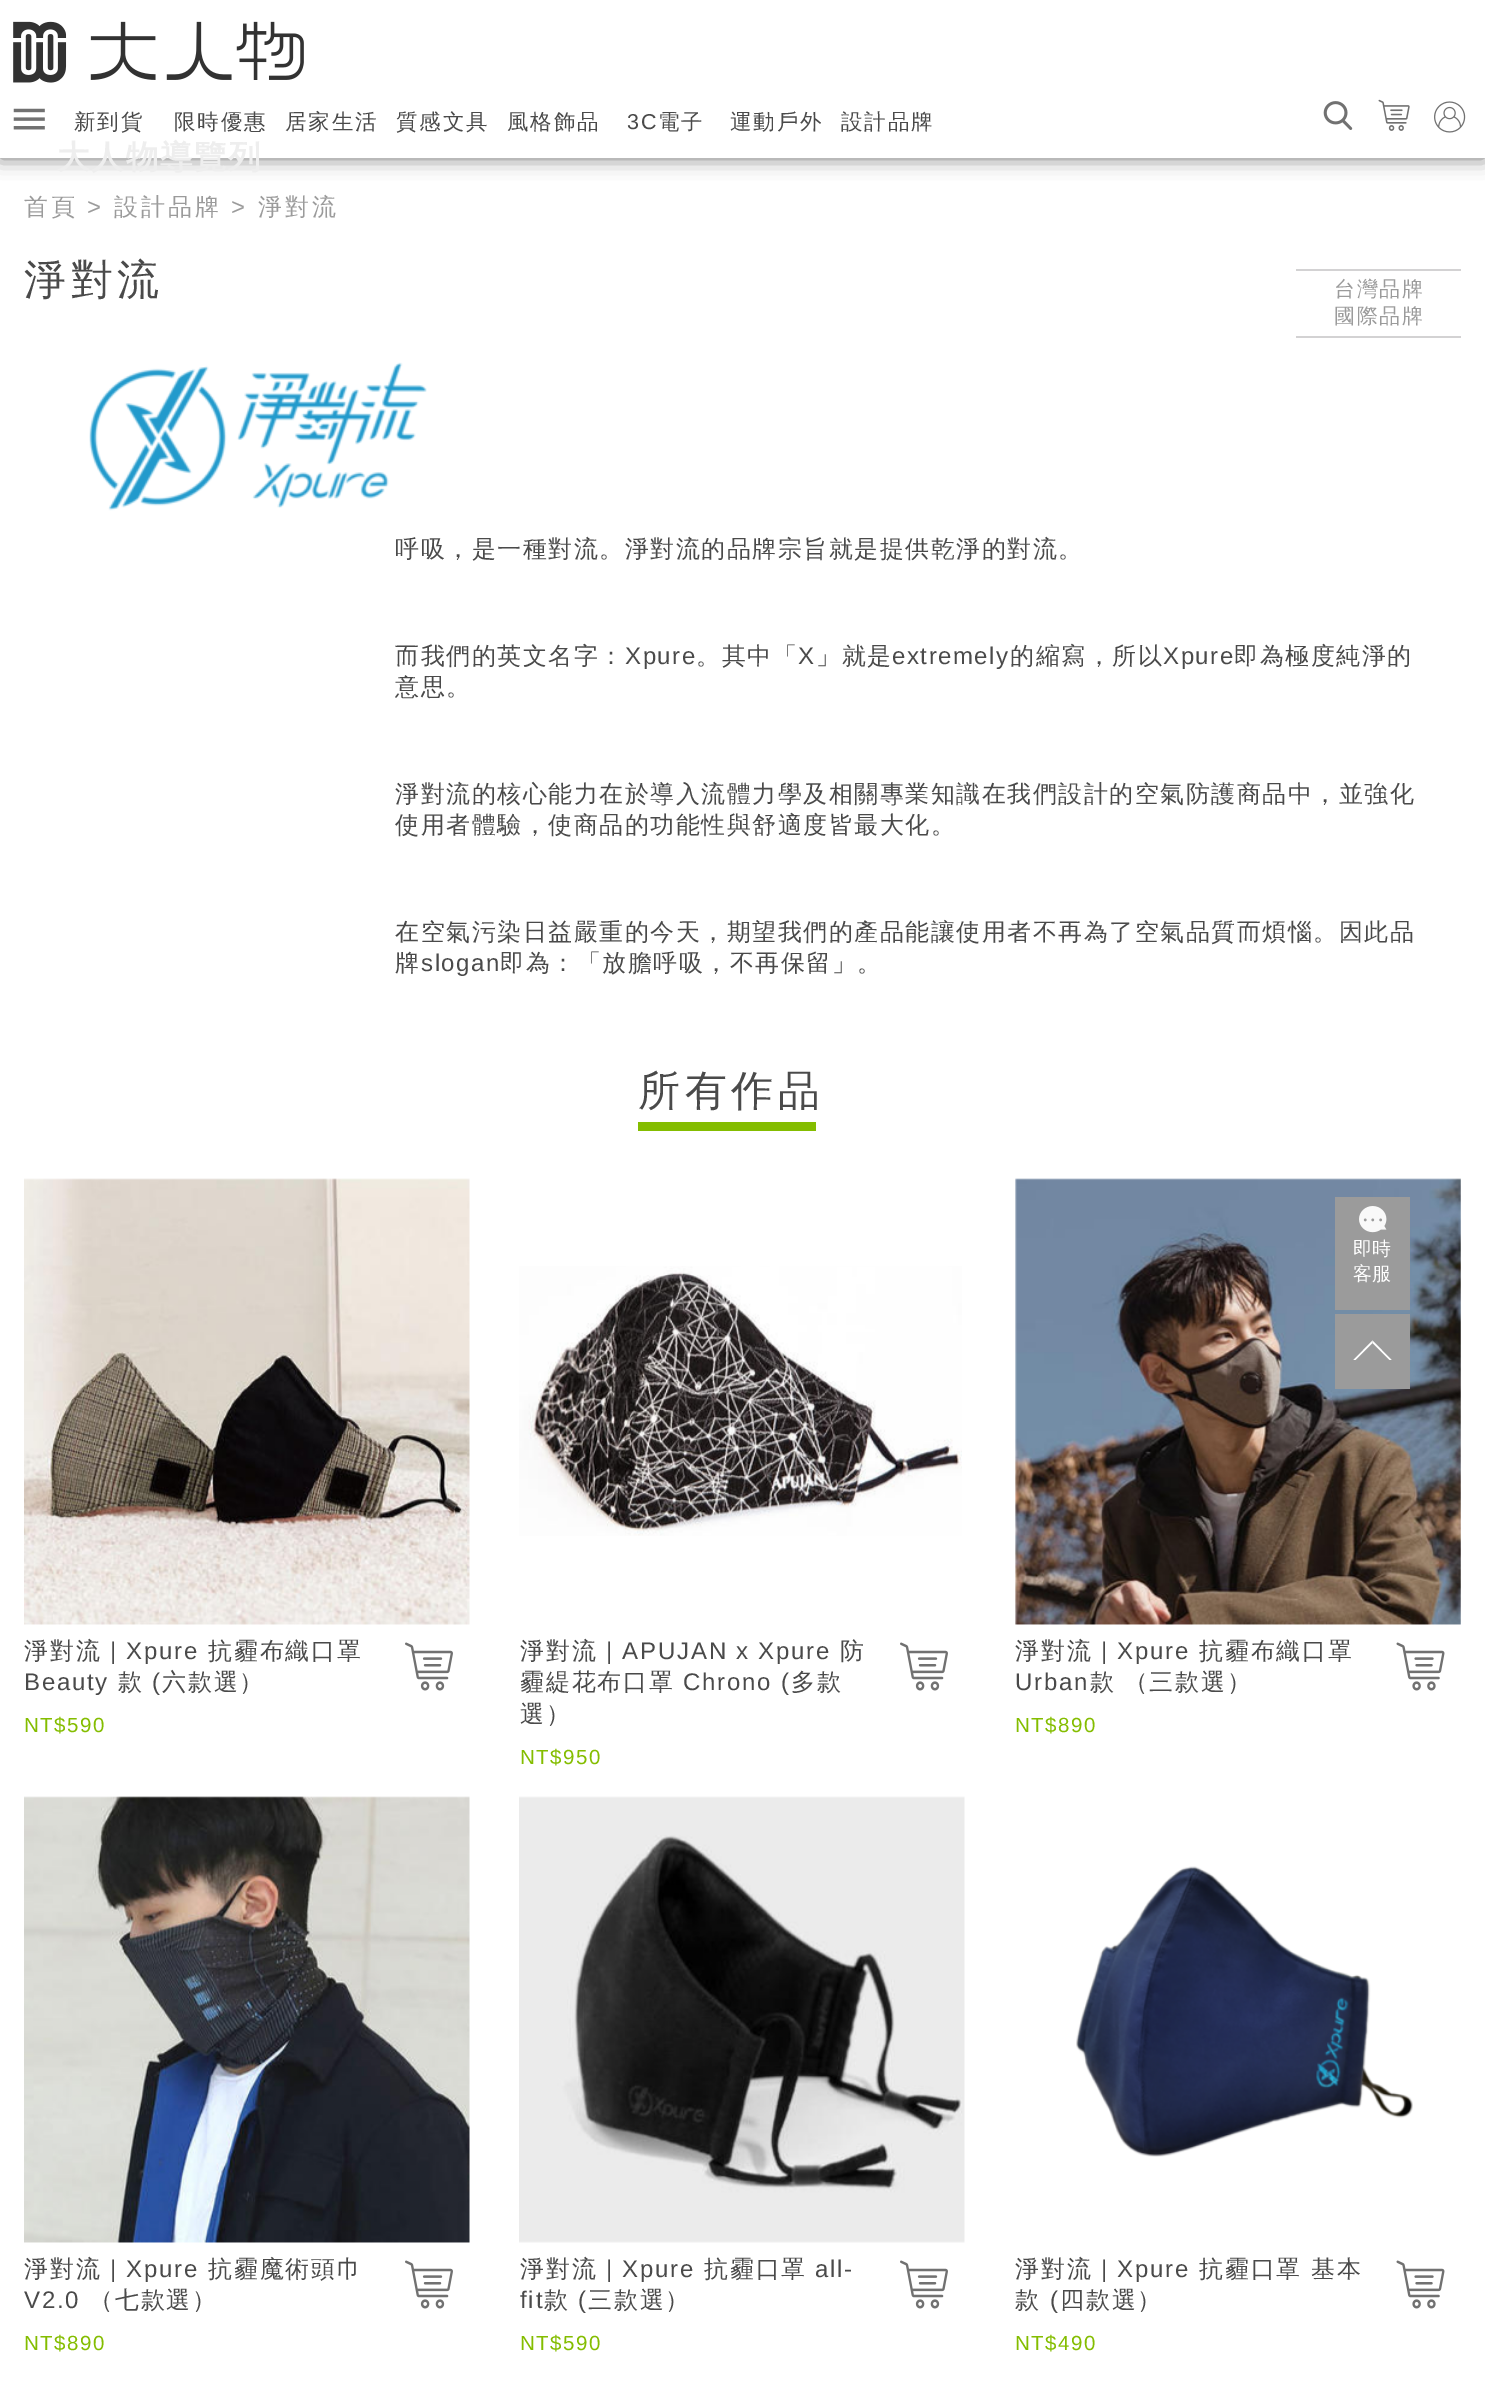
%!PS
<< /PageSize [1485 2392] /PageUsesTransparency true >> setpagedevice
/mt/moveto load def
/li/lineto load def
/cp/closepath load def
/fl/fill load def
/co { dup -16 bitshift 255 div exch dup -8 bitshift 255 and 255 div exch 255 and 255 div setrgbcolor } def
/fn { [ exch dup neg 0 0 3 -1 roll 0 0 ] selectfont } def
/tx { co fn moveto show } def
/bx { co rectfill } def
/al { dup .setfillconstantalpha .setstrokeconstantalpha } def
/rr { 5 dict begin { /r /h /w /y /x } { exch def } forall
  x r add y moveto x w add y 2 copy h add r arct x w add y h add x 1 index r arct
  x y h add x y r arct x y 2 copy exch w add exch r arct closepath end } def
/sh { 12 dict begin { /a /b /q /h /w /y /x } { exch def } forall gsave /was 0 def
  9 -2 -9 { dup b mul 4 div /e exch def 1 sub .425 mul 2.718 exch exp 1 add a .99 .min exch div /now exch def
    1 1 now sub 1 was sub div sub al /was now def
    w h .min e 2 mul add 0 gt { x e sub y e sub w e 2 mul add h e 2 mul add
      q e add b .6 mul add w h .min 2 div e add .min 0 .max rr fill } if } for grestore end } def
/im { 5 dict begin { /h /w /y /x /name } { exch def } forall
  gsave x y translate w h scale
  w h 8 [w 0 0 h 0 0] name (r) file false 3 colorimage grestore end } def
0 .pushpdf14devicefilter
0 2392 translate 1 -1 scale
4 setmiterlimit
0 0 1485 2392 16#FFFFFF bx
16#717171 co
0 0 1485 158 0 10 1 sh
0 0 1485 158 16#FFFFFF bx
(media/1.raw) 13 21 291 62 im
(media/2.raw) 1323 101 30 29 im
(media/3.raw) 1378 99 32 32 im
(media/4.raw) 1434 101 32 32 im
(media/5.raw) 13 108 32 22 im
(media/6.raw) 89 362 338 149 im
638 1122 178 9 16#84BD00 bx
1296 269 165 2 16#D3D2D3 bx
1296 336 165 2 16#D3D2D3 bx
(media/7.raw) 24 1178 446 447 im
(media/8.raw) 405 1642 48 49 im
(media/9.raw) 519 1266 443 270 im
(media/8.raw) 900 1642 48 49 im
(media/10.raw) 1015 1178 446 447 im
(media/11.raw) 1396 1642 49 49 im
(media/12.raw) 24 1796 446 447 im
(media/8.raw) 405 2260 48 49 im
(media/13.raw) 519 1796 446 447 im
(media/8.raw) 900 2260 48 49 im
(media/14.raw) 1076 1866 337 291 im
(media/11.raw) 1396 2260 49 49 im
1335 1197 75 113 16#9B9B9B bx
(media/15.raw) 1359 1206 28 27 im
1335 1314 75 75 16#9B9B9B bx
16#FFFFFF co
1353.5 1360 mt 1372.5 1340.5 li 1372.5 1343 li 1355.5 1360 li cp fl
1372.5 1340.5 mt 1391.5 1360 li 1389.5 1360 li 1372.5 1343 li cp fl
/WenQuanYiZenHei-Medium 21.5 fn
16#4A4A4A co
74 129 mt 1.75 0 (新到貨) ashow
174 129 mt 1.75 0 (限時優惠) ashow
285 129 mt 1.75 0 (居家生活) ashow
396 129 mt 1.75 0 (質感文具) ashow
507 129 mt 1.75 0 (風格飾品) ashow
/LiberationSans-Regular 21.5 fn
627 129 mt 1.75 0 (3C) ashow
/WenQuanYiZenHei-Medium 21.5 fn
658 129 mt 1.75 0 (電子) ashow
730 129 mt 1.75 0 (運動戶外) ashow
841 129 mt 1.75 0 (設計品牌) ashow
/WenQuanYiZenHei-Bold 32.5 fn
16#EEEEEE co
57 168 mt 1.75 0 (大人物導覽列) ashow
/WenQuanYiZenHei-Medium 24 fn
16#9B9B9B co
24 215 mt 3 0 (首頁) ashow
/LiberationSans-Regular 24 fn
87 215 mt 3 0 (>) ashow
/WenQuanYiZenHei-Medium 24 fn
114 215 mt 3 0 (設計品牌) ashow
/LiberationSans-Regular 24 fn
231 215 mt 3 0 (>) ashow
/WenQuanYiZenHei-Medium 24 fn
258 215 mt 3 0 (淨對流) ashow
/WenQuanYiZenHei-Medium 42 fn
16#4A4A4A co
24 294 mt 4.5 0 (淨對流) ashow
/WenQuanYiZenHei-Medium 24 fn
395 557 mt 1.5 0 (呼吸，是一種對流。淨對流的品牌宗旨就是提供乾淨的對流。) ashow
395 664 mt 1.5 0 (而我們的英文名字：) ashow
/LiberationSans-Regular 24 fn
625 664 mt 1.5 0 (Xpure) ashow
/WenQuanYiZenHei-Medium 24 fn
696 664 mt 1.5 0 (。其中「) ashow
/LiberationSans-Regular 24 fn
798 664 mt 1.5 0 (X) ashow
/WenQuanYiZenHei-Medium 24 fn
816 664 mt 1.5 0 (」就是) ashow
/LiberationSans-Regular 24 fn
892 664 mt 1.5 0 (extremely) ashow
/WenQuanYiZenHei-Medium 24 fn
1010 664 mt 1.5 0 (的縮寫，所以) ashow
/LiberationSans-Regular 24 fn
1163 664 mt 1.5 0 (Xpure) ashow
/WenQuanYiZenHei-Medium 24 fn
1234 664 mt 1.5 0 (即為極度純淨的) ashow
395 695 mt 1.5 0 (意思。) ashow
395 802 mt 1.5 0 (淨對流的核心能力在於導入流體力學及相關專業知識在我們設計的空氣防護商品中，並強化) ashow
395 833 mt 1.5 0 (使用者體驗，使商品的功能性與舒適度皆最大化。) ashow
395 940 mt 1.5 0 (在空氣污染日益嚴重的今天，期望我們的產品能讓使用者不再為了空氣品質而煩惱。因此品) ashow
395 971 mt 1.5 0 (牌) ashow
/LiberationSans-Regular 24 fn
421 971 mt 1.5 0 (slogan) ashow
/WenQuanYiZenHei-Medium 24 fn
500 971 mt 1.5 0 (即為：「放膽呼吸，不再保留」。) ashow
/WenQuanYiZenHei-Medium 42 fn
638 1105 mt 4.5 0 (所有作品) ashow
/WenQuanYiZenHei-Medium 21 fn
16#9B9B9B co
1334 296 mt 1.5 0 (台灣品牌) ashow
1334 323 mt 1.5 0 (國際品牌) ashow
/WenQuanYiZenHei-Medium 24 fn
16#4A4A4A co
24 1659 mt 1.75 0 (淨對流) ashow
/LiberationSans-Regular 24 fn
110 1659 mt 1.75 0 (| Xpure) ashow
/WenQuanYiZenHei-Medium 24 fn
208 1659 mt 1.75 0 (抗霾布織口罩) ashow
/LiberationSans-Regular 24 fn
24 1690 mt 1.75 0 (Beauty) ashow
/WenQuanYiZenHei-Medium 24 fn
118 1690 mt 1.75 0 (款) ashow
/LiberationSans-Regular 24 fn
152 1690 mt 1.75 0 (\() ashow
/WenQuanYiZenHei-Medium 24 fn
162 1690 mt 1.75 0 (六款選）) ashow
/LiberationSans-Regular 20.5 fn
16#84BD00 co
24 1732 mt 1.5 0 (NT$590) ashow
/WenQuanYiZenHei-Medium 24 fn
16#4A4A4A co
520 1659 mt 1.75 0 (淨對流) ashow
/LiberationSans-Regular 24 fn
606 1659 mt 1.75 0 (| APUJAN x Xpure) ashow
/WenQuanYiZenHei-Medium 24 fn
840 1659 mt 1.75 0 (防) ashow
520 1690 mt 1.75 0 (霾緹花布口罩) ashow
/LiberationSans-Regular 24 fn
683 1690 mt 1.75 0 (Chrono \() ashow
/WenQuanYiZenHei-Medium 24 fn
791 1690 mt 1.75 0 (多款) ashow
520 1722 mt 1.75 0 (選）) ashow
/LiberationSans-Regular 20.5 fn
16#84BD00 co
520 1764 mt 1.5 0 (NT$950) ashow
/WenQuanYiZenHei-Medium 24 fn
16#4A4A4A co
1015 1659 mt 1.75 0 (淨對流) ashow
/LiberationSans-Regular 24 fn
1101 1659 mt 1.75 0 (| Xpure) ashow
/WenQuanYiZenHei-Medium 24 fn
1199 1659 mt 1.75 0 (抗霾布織口罩) ashow
/LiberationSans-Regular 24 fn
1015 1690 mt 1.75 0 (Urban) ashow
/WenQuanYiZenHei-Medium 24 fn
1090 1690 mt -1 0 32 1.75 0 (款 （三款選）) awidthshow
/LiberationSans-Regular 20.5 fn
16#84BD00 co
1015 1732 mt 1.5 0 (NT$890) ashow
/WenQuanYiZenHei-Medium 24 fn
16#4A4A4A co
24 2277 mt 1.75 0 (淨對流) ashow
/LiberationSans-Regular 24 fn
110 2277 mt 1.75 0 (| Xpure) ashow
/WenQuanYiZenHei-Medium 24 fn
208 2277 mt 1.75 0 (抗霾魔術頭巾) ashow
/LiberationSans-Regular 24 fn
24 2308 mt 1.75 0 (V2.0) ashow
/WenQuanYiZenHei-Medium 24 fn
89 2308 mt 1.75 0 (（七款選）) ashow
/LiberationSans-Regular 20.5 fn
16#84BD00 co
24 2350 mt 1.5 0 (NT$890) ashow
/WenQuanYiZenHei-Medium 24 fn
16#4A4A4A co
520 2277 mt 1.75 0 (淨對流) ashow
/LiberationSans-Regular 24 fn
606 2277 mt 1.75 0 (| Xpure) ashow
/WenQuanYiZenHei-Medium 24 fn
704 2277 mt 1.75 0 (抗霾口罩) ashow
/LiberationSans-Regular 24 fn
815 2277 mt 1.75 0 (all-) ashow
520 2308 mt 1.75 0 (fit) ashow
/WenQuanYiZenHei-Medium 24 fn
544 2308 mt 1.75 0 (款) ashow
/LiberationSans-Regular 24 fn
578 2308 mt 1.75 0 (\() ashow
/WenQuanYiZenHei-Medium 24 fn
588 2308 mt 1.75 0 (三款選）) ashow
/LiberationSans-Regular 20.5 fn
16#84BD00 co
520 2350 mt 1.5 0 (NT$590) ashow
/WenQuanYiZenHei-Medium 24 fn
16#4A4A4A co
1015 2277 mt 1.75 0 (淨對流) ashow
/LiberationSans-Regular 24 fn
1101 2277 mt 1.75 0 (| Xpure) ashow
/WenQuanYiZenHei-Medium 24 fn
1199 2277 mt 1.75 0 (抗霾口罩) ashow
1311 2277 mt 1.75 0 (基本) ashow
1015 2308 mt 1.75 0 (款) ashow
/LiberationSans-Regular 24 fn
1050 2308 mt 1.75 0 (\() ashow
/WenQuanYiZenHei-Medium 24 fn
1060 2308 mt 1.75 0 (四款選）) ashow
/LiberationSans-Regular 20.5 fn
16#84BD00 co
1015 2350 mt 1.5 0 (NT$490) ashow
(即時) 1353 1255 /WenQuanYiZenHei-Medium 19 16#FFFFFF tx
(客服) 1353 1280 /WenQuanYiZenHei-Medium 19 16#FFFFFF tx
.poppdf14devicefilter showpage
